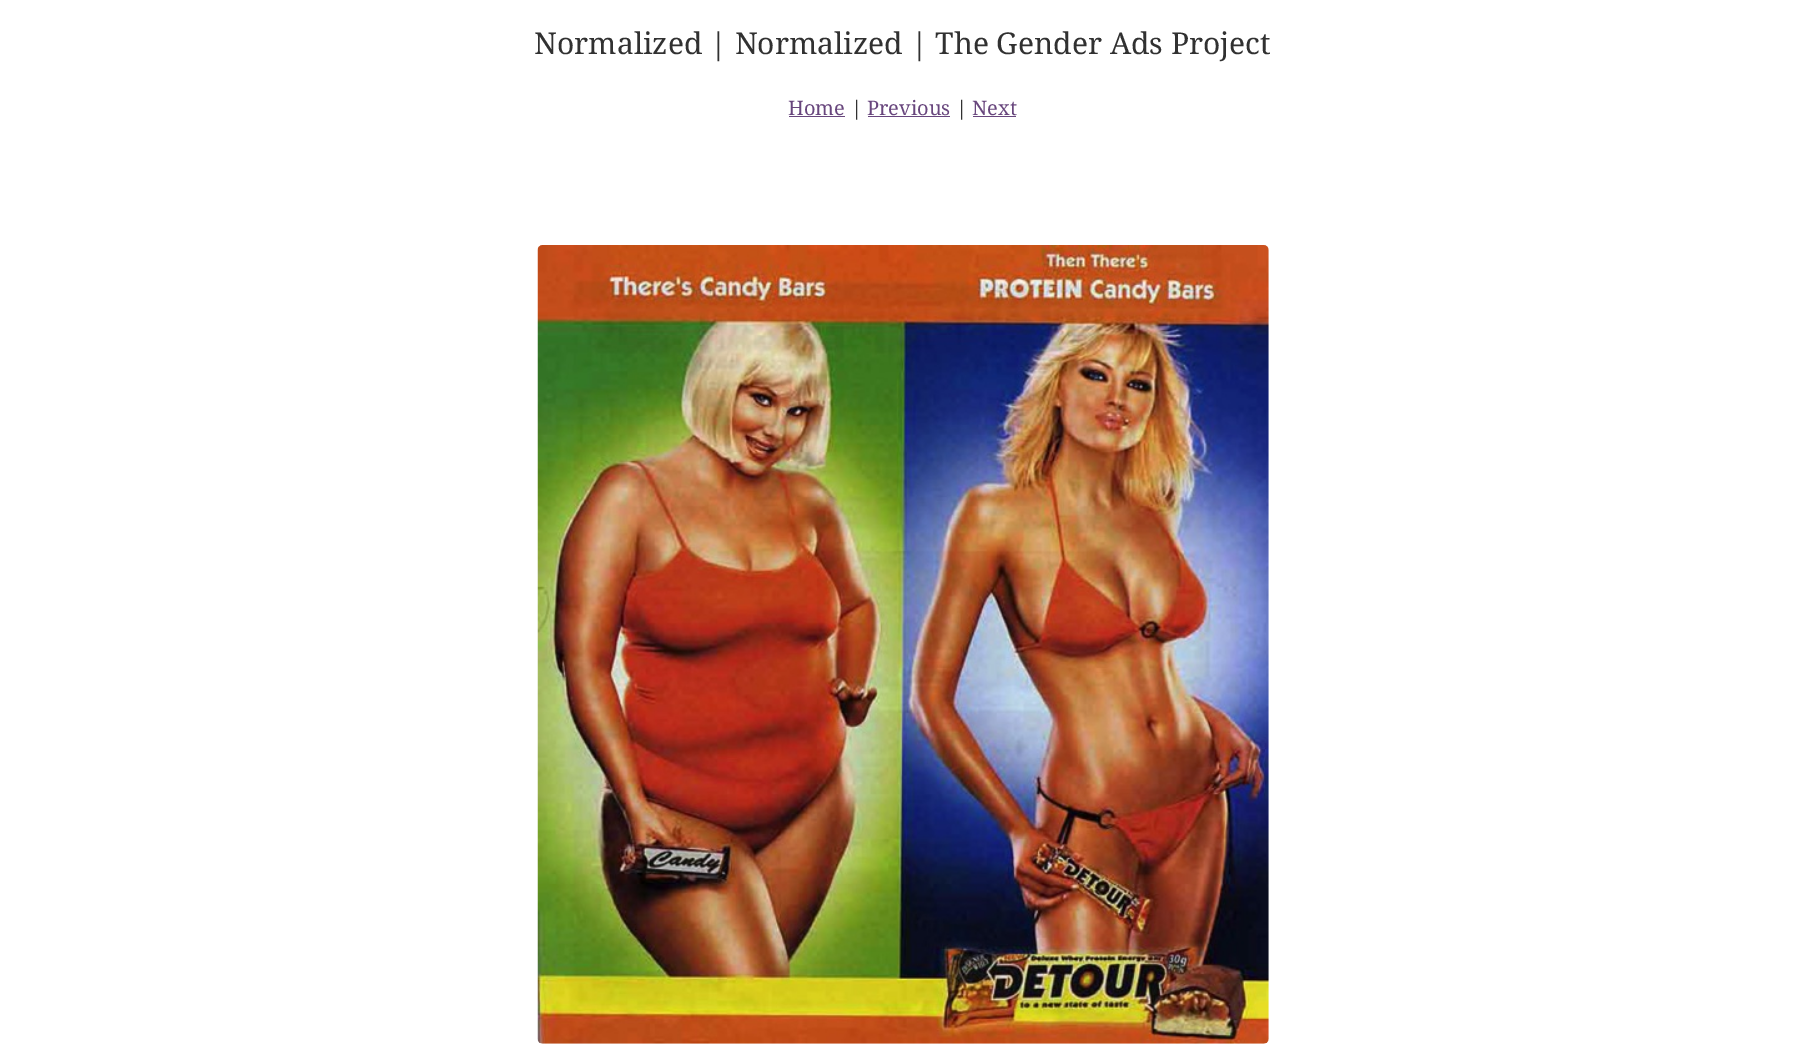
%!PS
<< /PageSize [1804 1062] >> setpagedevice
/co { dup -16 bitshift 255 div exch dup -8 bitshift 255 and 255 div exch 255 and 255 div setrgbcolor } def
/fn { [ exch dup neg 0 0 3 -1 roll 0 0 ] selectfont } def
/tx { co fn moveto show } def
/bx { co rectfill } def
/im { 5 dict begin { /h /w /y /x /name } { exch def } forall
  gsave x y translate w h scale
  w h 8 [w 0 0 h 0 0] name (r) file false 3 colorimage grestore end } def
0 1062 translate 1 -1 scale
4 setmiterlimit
0 0 1804 1062 16#FFFFFF bx
789 116 56 1 16#68467D bx
868 116 82 1 16#68467D bx
973 116 43 1 16#68467D bx
(media/1.raw) 537 245 732 799 im
(Normalized | Normalized | The Gender Ads Project) 534 54 /NotoSerif-Regular 30 16#313131 tx
(Home) 788 115 /NotoSerif-Regular 20 16#68467D tx
(|) 851 115 /NotoSerif-Regular 20 16#313131 tx
(Previous) 867 115 /NotoSerif-Regular 20 16#68467D tx
(|) 956 115 /NotoSerif-Regular 20 16#313131 tx
(Next) 972 115 /NotoSerif-Regular 20 16#68467D tx
showpage
